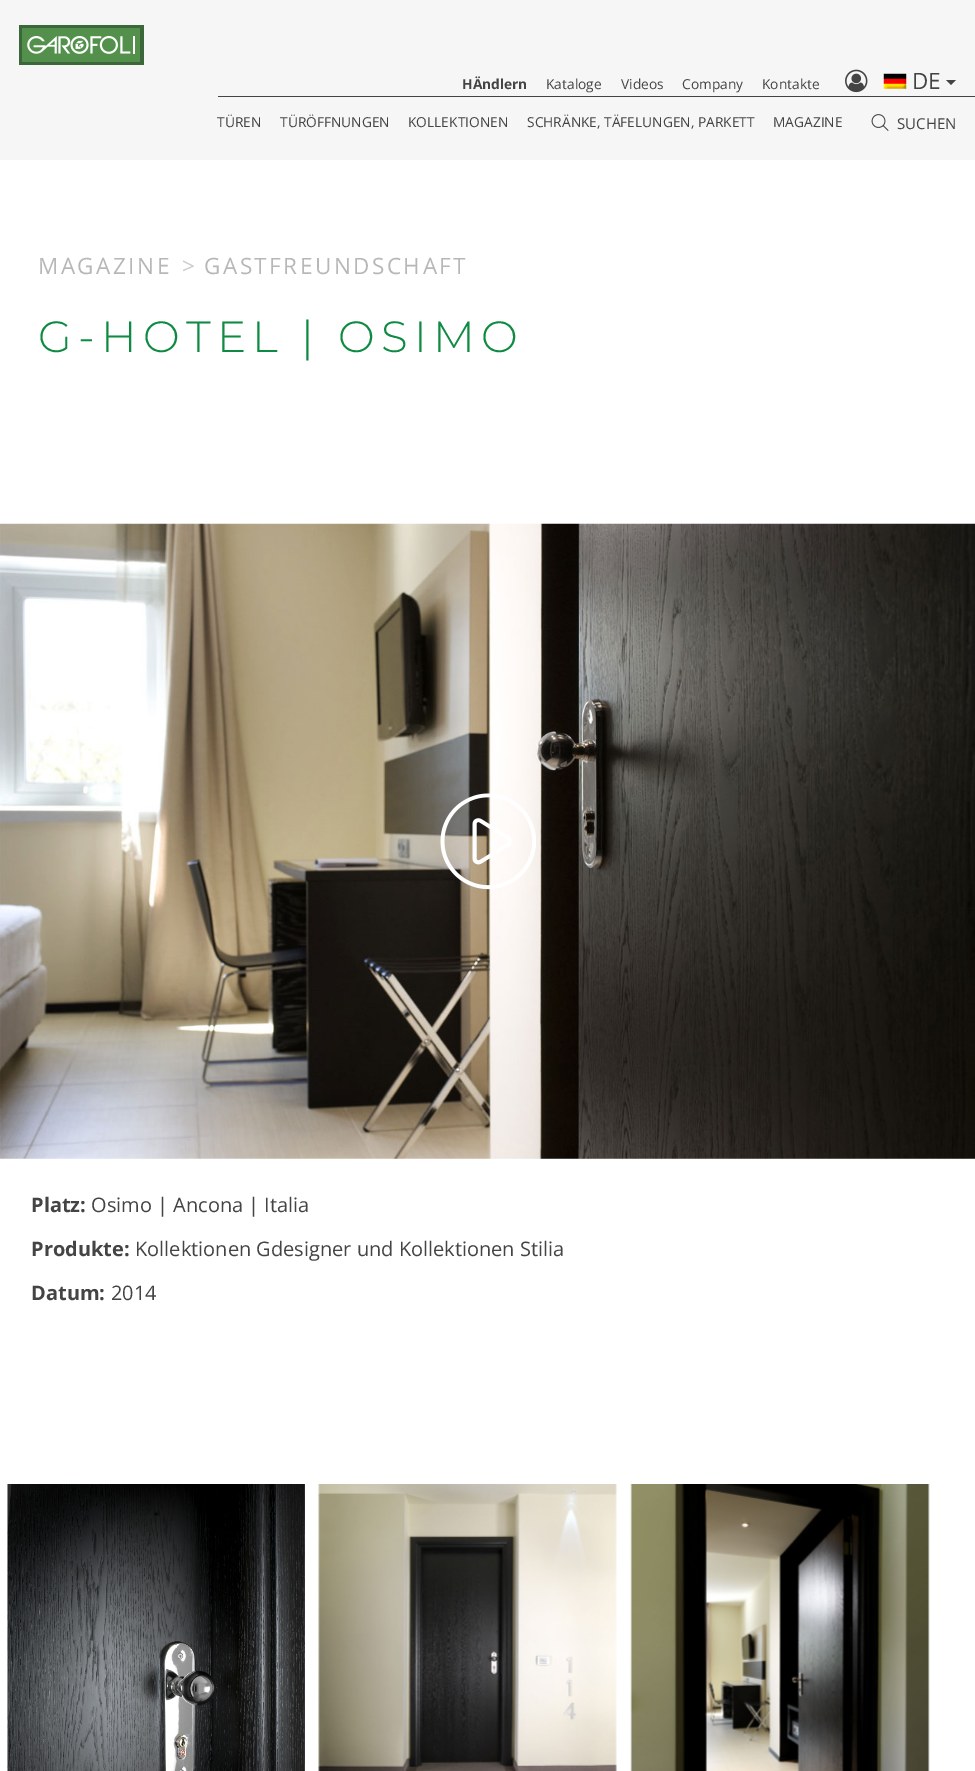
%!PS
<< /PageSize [975 1771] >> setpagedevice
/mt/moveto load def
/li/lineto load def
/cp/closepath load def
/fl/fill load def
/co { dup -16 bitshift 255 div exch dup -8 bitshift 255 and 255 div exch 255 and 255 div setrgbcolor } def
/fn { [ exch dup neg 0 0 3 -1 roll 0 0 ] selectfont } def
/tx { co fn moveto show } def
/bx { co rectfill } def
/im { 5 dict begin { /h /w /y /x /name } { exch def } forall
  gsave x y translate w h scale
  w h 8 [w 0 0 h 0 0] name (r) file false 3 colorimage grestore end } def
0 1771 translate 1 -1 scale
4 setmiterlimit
0 0 975 1771 16#FFFFFF bx
0 0 975 160 16#F6F6F6 bx
(media/1.raw) 19 25 125 40 im
(media/2.raw) 845 69 23 24 im
(media/3.raw) 883 73 24 16 im
16#444444 co
946 80 mt 956 80 li 951 85 li cp fl
218 96 757 1 16#444444 bx
(media/4.raw) 871 114 18 17 im
(media/5.raw) 0 523 975 636 im
(media/6.raw) 440 793 96 97 im
(media/7.raw) 7 1484 298 287 im
(media/8.raw) 318 1484 299 287 im
(media/9.raw) 630 1484 300 287 im
(HÄndlern) 462 89 /OpenSans-Bold 13.75 16#444444 tx
(Kataloge) 546 89 /OpenSans-Regular 13.75 16#444444 tx
(Videos) 621 89 /OpenSans-Regular 13.75 16#444444 tx
(Company) 682 89 /OpenSans-Regular 13.75 16#444444 tx
(Kontakte) 762 89 /OpenSans-Regular 13.75 16#444444 tx
(DE) 912 89 /OpenSans-Regular 22.5 16#444444 tx
(TÜREN) 217 127 /OpenSans-Regular 13.75 16#444444 tx
(TÜRÖFFNUNGEN) 280 127 /OpenSans-Regular 13.75 16#444444 tx
(KOLLEKTIONEN) 408 127 /OpenSans-Regular 13.75 16#444444 tx
(SCHRÄNKE, TÄFELUNGEN, PARKETT) 527 127 /OpenSans-Regular 13.75 16#444444 tx
(MAGAZINE) 773 127 /OpenSans-Regular 13.75 16#444444 tx
(SUCHEN) 897 129 /OpenSans-Regular 15 16#444444 tx
/OpenSans-Regular 22.5 fn
16#B7B7B7 co
38 274 mt 2.5 0 (MAGAZINE) ashow
16#CCCCCC co
182 274 mt 2.5 0 (>) ashow
16#B7B7B7 co
204 274 mt 2.5 0 (GASTFREUNDSCHAFT) ashow
/Montserrat-Light 43.75 fn
16#0F8A43 co
38 352 mt 6.25 0 (G-HOTEL | OSIMO) ashow
(Platz:) 31 1212 /OpenSans-Bold 20 16#444444 tx
(Osimo | Ancona | Italia) 91 1212 /OpenSans-Regular 20 16#444444 tx
(Produkte:) 31 1256 /OpenSans-Bold 20 16#444444 tx
(Kollektionen Gdesigner und Kollektionen Stilia) 135 1256 /OpenSans-Regular 20 16#444444 tx
(Datum:) 31 1300 /OpenSans-Bold 20 16#444444 tx
(2014) 111 1300 /OpenSans-Regular 20 16#444444 tx
showpage
